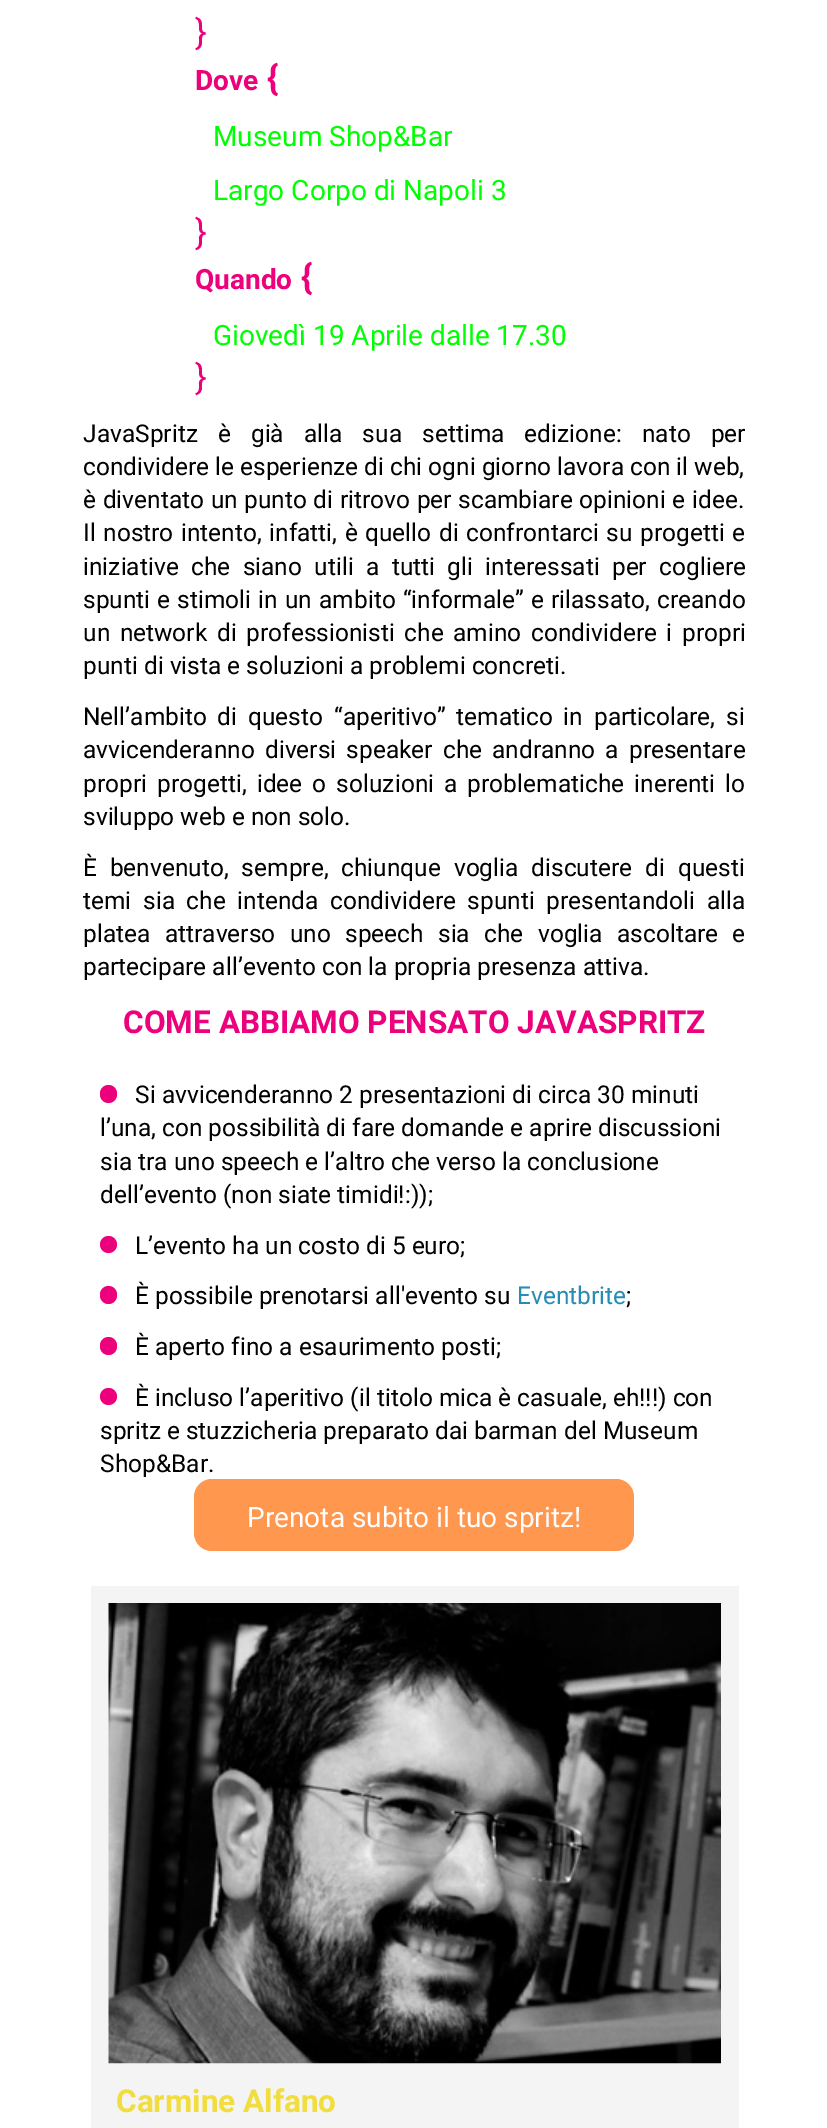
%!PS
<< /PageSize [827 2128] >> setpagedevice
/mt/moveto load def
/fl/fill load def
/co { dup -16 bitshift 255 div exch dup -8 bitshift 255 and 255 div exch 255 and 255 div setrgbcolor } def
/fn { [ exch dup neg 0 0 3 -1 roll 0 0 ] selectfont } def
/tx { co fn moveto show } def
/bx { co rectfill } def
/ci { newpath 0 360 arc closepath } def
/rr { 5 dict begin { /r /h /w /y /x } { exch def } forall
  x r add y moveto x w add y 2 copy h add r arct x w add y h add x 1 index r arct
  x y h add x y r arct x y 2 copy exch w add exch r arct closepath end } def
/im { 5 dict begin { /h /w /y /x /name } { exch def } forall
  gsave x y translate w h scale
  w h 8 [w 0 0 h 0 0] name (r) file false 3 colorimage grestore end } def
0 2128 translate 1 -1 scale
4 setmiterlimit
0 0 827 2128 16#FFFFFF bx
16#EC007C co
100 1085 17 18 8.5 rr fl
108.5 1244.5 8.5 ci fl
100 1286 17 18 8.5 rr fl
100 1337 17 18 8.5 rr fl
108.5 1396.5 8.5 ci fl
16#FF974F co
194 1479 440 72 18 rr fl
91 1586 648 542 16#F4F4F4 bx
(media/1.raw) 108 1603 613 461 im
(}) 195 44 /Roboto-Regular 35 16#EC007C tx
(Dove) 195 90 /Roboto-Bold 28 16#EC007C tx
({) 267 90 /Roboto-Bold 35 16#EC007C tx
(Museum Shop&Bar) 213 146 /Roboto-Regular 28 16#00FF00 tx
(Largo Corpo di Napoli 3) 213 200 /Roboto-Regular 28 16#00FF00 tx
(}) 195 244 /Roboto-Regular 35 16#EC007C tx
(Quando) 195 289 /Roboto-Bold 28 16#EC007C tx
({) 301 289 /Roboto-Bold 35 16#EC007C tx
(Giovedì 19 Aprile dalle 17.30) 213 345 /Roboto-Regular 28 16#00FF00 tx
(}) 195 389 /Roboto-Regular 35 16#EC007C tx
/Roboto-Regular 24.5 fn
16#000000 co
83 442 mt 14 0 32 (JavaSpritz è già alla sua settima edizione: nato per) widthshow
(condividere le esperienze di chi ogni giorno lavora con il web,) 83 475 /Roboto-Regular 24.5 16#000000 tx
83 508 mt .5 0 32 (è diventato un punto di ritrovo per scambiare opinioni e idee.) widthshow
83 541 mt 1.4 0 32 (Il nostro intento, infatti, è quello di confrontarci su progetti e) widthshow
83 575 mt 6.25 0 32 (iniziative che siano utili a tutti gli interessati per cogliere) widthshow
83 608 mt 1 0 32 (spunti e stimoli in un ambito “informale” e rilassato, creando) widthshow
83 641 mt 3.5 0 32 (un network di professionisti che amino condividere i propri) widthshow
(punti di vista e soluzioni a problemi concreti.) 83 674 /Roboto-Regular 24.5 16#000000 tx
83 725 mt 4.75 0 32 (Nell’ambito di questo “aperitivo” tematico in particolare, si) widthshow
83 758 mt 4 0 32 (avvicenderanno diversi speaker che andranno a presentare) widthshow
83 792 mt 4 0 32 (propri progetti, idee o soluzioni a problematiche inerenti lo) widthshow
(sviluppo web e non solo.) 83 825 /Roboto-Regular 24.5 16#000000 tx
83 876 mt 6.75 0 32 (È benvenuto, sempre, chiunque voglia discutere di questi) widthshow
83 909 mt 5.5 0 32 (temi sia che intenda condividere spunti presentandoli alla) widthshow
83 942 mt 8.25 0 32 (platea attraverso uno speech sia che voglia ascoltare e) widthshow
(partecipare all’evento con la propria presenza attiva.) 83 975 /Roboto-Regular 24.5 16#000000 tx
(COME ABBIAMO PENSATO JAVASPRITZ) 123 1033 /Roboto-Bold 31.5 16#EC007C tx
(Si avvicenderanno 2 presentazioni di circa 30 minuti) 135 1103 /Roboto-Regular 24.5 16#000000 tx
(l’una, con possibilità di fare domande e aprire discussioni) 100 1136 /Roboto-Regular 24.5 16#000000 tx
(sia tra uno speech e l’altro che verso la conclusione) 100 1170 /Roboto-Regular 24.5 16#000000 tx
(dell’evento \(non siate timidi!:\)\);) 100 1203 /Roboto-Regular 24.5 16#000000 tx
(L’evento ha un costo di 5 euro;) 135 1254 /Roboto-Regular 24.5 16#000000 tx
(È possibile prenotarsi all'evento su) 135 1304 /Roboto-Regular 24.5 16#000000 tx
(Eventbrite) 517 1304 /Roboto-Regular 24.5 16#268DB2 tx
(;) 626 1304 /Roboto-Regular 24.5 16#000000 tx
(È aperto fino a esaurimento posti;) 135 1355 /Roboto-Regular 24.5 16#000000 tx
(È incluso l’aperitivo \(il titolo mica è casuale, eh!!!\) con) 135 1406 /Roboto-Regular 24.5 16#000000 tx
(spritz e stuzzicheria preparato dai barman del Museum) 100 1439 /Roboto-Regular 24.5 16#000000 tx
(Shop&Bar.) 100 1472 /Roboto-Regular 24.5 16#000000 tx
(Prenota subito il tuo spritz!) 247 1527 /Roboto-Regular 28 16#FFFFFF tx
(Carmine Alfano) 116 2112 /Roboto-Bold 31.5 16#F1DD3F tx
showpage
